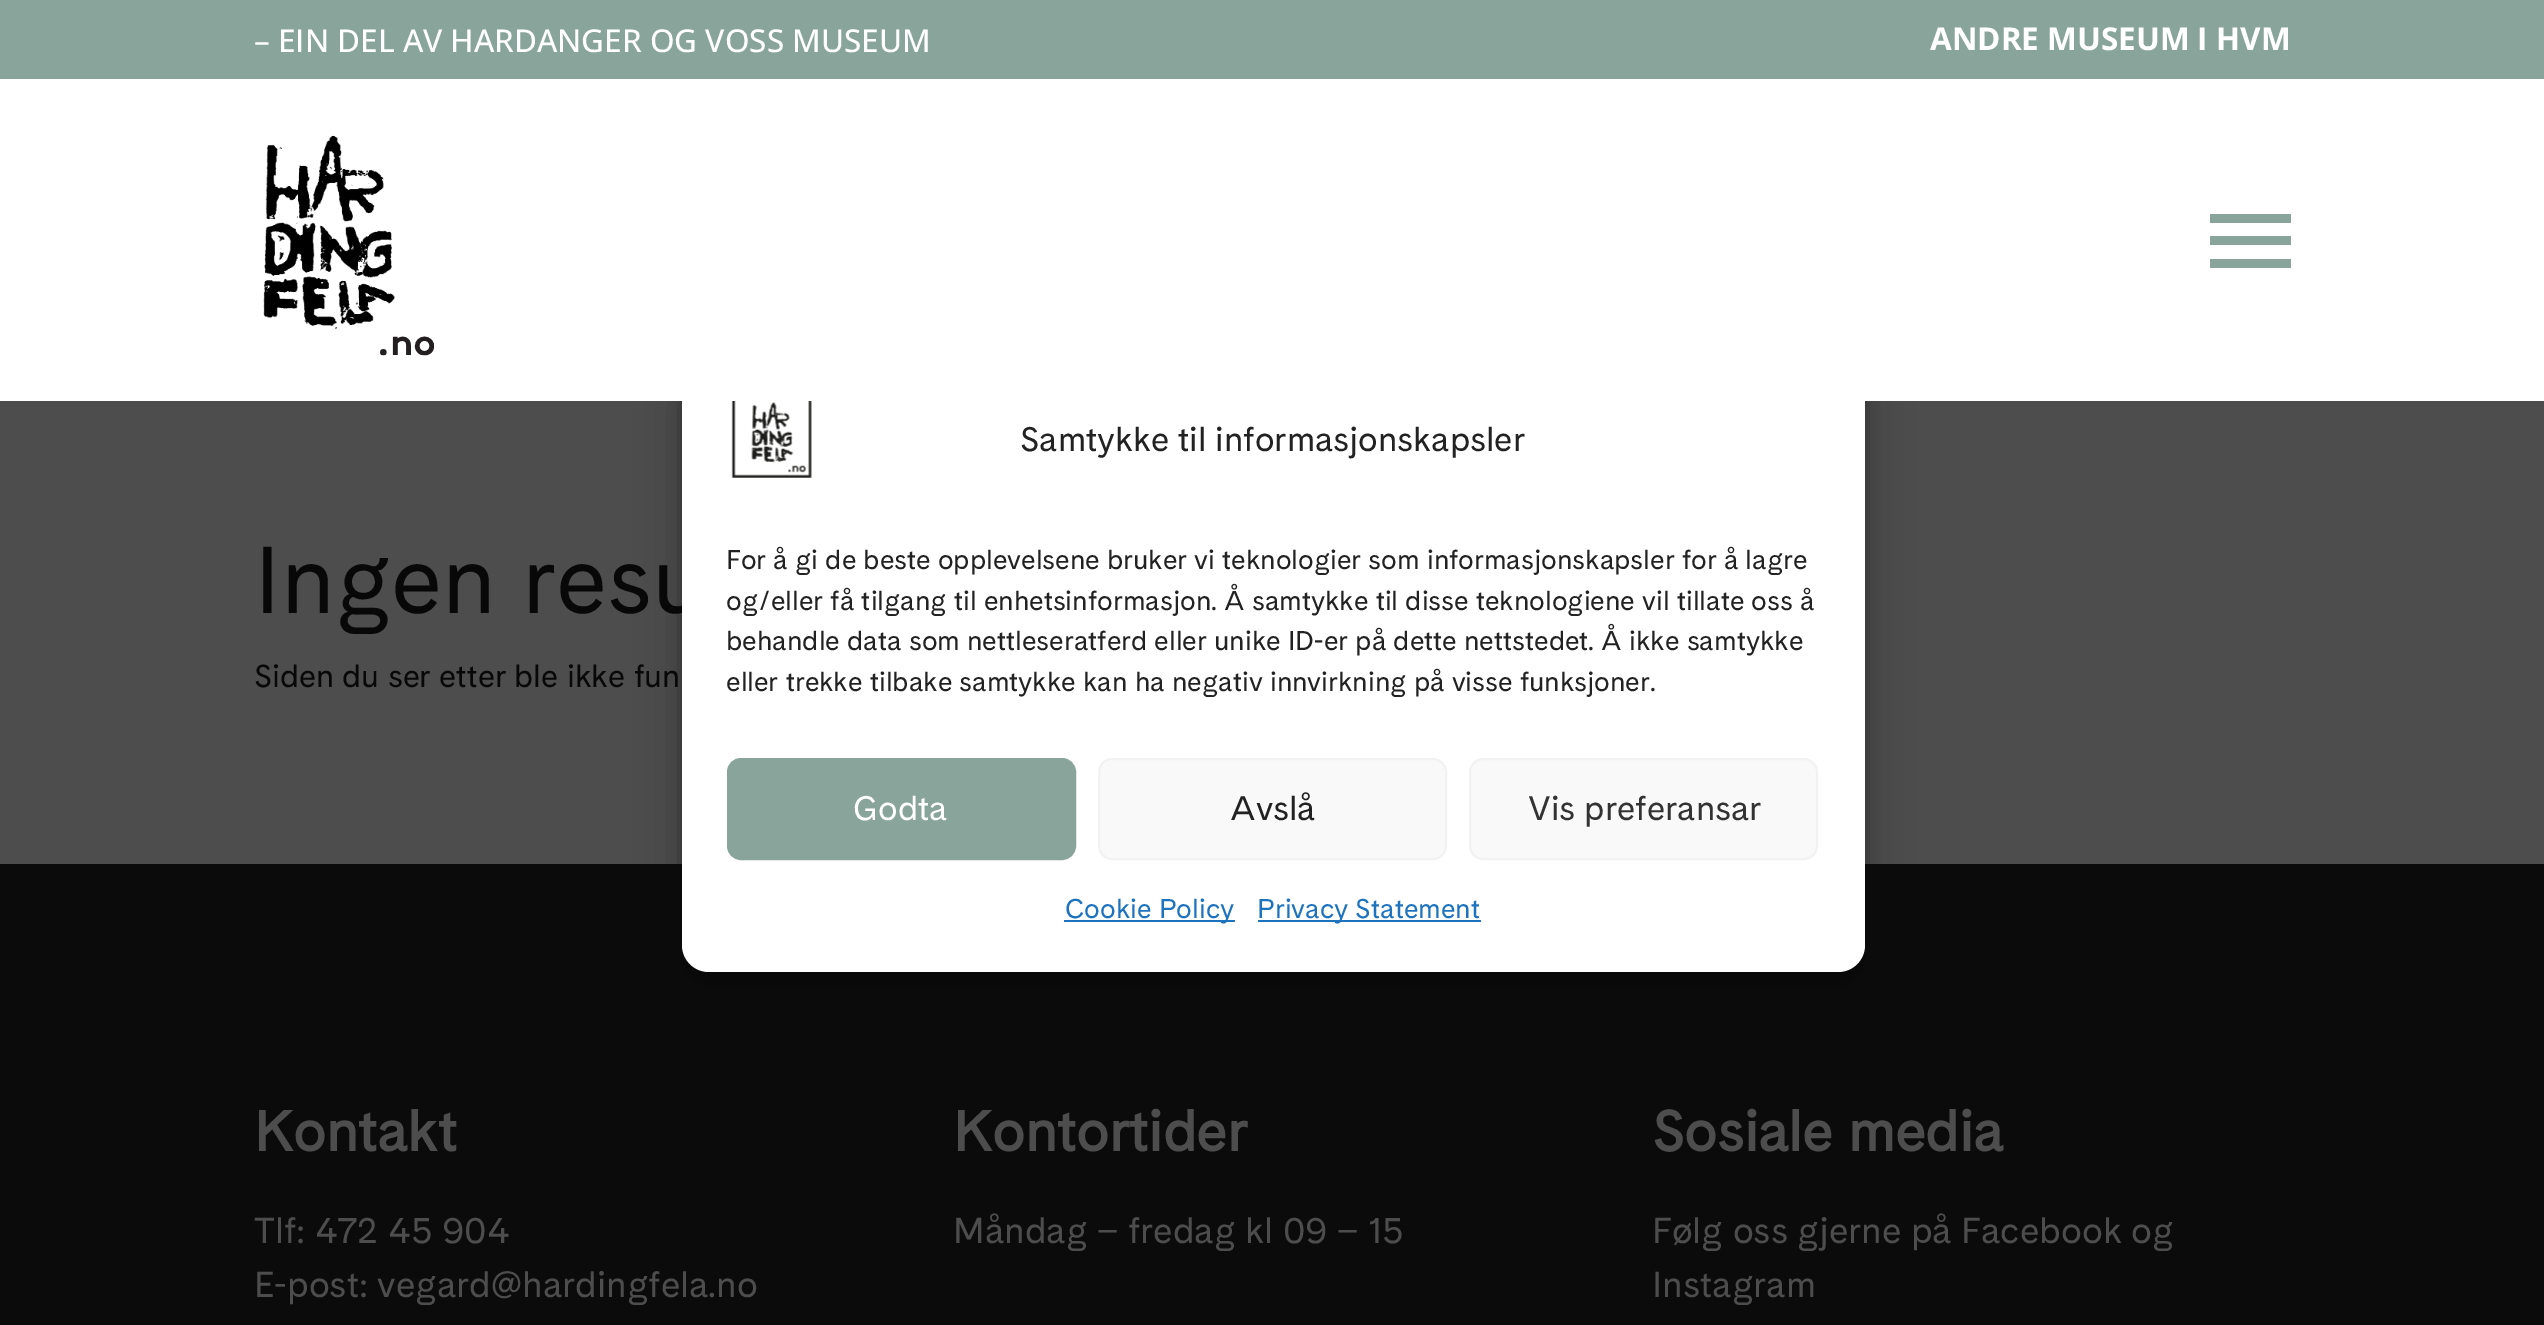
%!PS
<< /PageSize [2544 1325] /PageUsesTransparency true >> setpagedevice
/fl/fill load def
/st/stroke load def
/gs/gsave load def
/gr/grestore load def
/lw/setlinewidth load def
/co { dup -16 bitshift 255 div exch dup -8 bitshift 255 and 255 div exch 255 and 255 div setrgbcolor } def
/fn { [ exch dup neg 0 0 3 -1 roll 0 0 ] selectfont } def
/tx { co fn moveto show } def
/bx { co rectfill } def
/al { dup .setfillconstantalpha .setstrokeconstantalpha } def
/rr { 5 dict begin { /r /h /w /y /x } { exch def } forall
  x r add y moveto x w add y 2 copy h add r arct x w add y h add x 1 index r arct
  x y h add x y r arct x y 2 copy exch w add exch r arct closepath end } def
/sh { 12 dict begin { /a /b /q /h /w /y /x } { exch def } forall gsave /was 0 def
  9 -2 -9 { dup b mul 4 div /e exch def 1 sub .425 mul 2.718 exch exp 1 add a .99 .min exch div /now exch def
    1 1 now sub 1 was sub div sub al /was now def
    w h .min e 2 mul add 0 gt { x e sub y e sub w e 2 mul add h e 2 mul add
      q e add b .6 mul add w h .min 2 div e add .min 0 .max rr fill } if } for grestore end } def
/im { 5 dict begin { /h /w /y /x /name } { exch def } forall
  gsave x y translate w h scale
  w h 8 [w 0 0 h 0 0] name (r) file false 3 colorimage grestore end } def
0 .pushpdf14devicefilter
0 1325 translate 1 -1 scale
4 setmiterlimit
0 0 2544 1325 16#4D4D4D bx
0 0 2544 79 16#89A49B bx
0 864 2544 461 16#0B0B0B bx
16#000000 co
682 367 1183 619 27 7 .23 sh
682 376 1183 619 27 22.5 .19 sh
(– EIN DEL AV HARDANGER OG VOSS MUSEUM) 254 52 /OpenSans-Medium 31.5 16#FFFFFF tx
(ANDRE MUSEUM I HVM) 1930 50 /OpenSans-Bold 31.5 16#FFFFFF tx
(Ingen resu) 254 613 /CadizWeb-Regular 94.5 16#080808 tx
(Siden du ser etter ble ikke fun) 254 687 /CadizWeb-Regular 31.5 16#080808 tx
(Kontakt) 254 1151 /CadizWeb-Bold 56.25 16#4D4D4D tx
(Tlf: 472 45 904) 254 1243 /CadizWeb-Regular 36 16#4D4D4D tx
(E-post: vegard@hardingfela.no) 254 1297 /CadizWeb-Regular 36 16#4D4D4D tx
(Kontortider) 953 1151 /CadizWeb-Bold 56.25 16#4D4D4D tx
(Måndag – fredag kl 09 – 15) 953 1243 /CadizWeb-Regular 36 16#4D4D4D tx
(Sosiale media) 1652 1151 /CadizWeb-Bold 56.25 16#4D4D4D tx
(Følg oss gjerne på Facebook og) 1652 1243 /CadizWeb-Regular 36 16#4D4D4D tx
(Instagram) 1652 1297 /CadizWeb-Regular 36 16#4D4D4D tx
16#FFFFFF co
682 353 1183 619 27 rr fl
0 79 2544 322 16#FFFFFF bx
2210 259 81 9 16#89A49B bx
2210 236 81 9 16#89A49B bx
2210 214 81 9 16#89A49B bx
(media/1.raw) 263 135 171 221 im
(media/2.raw) 731 401 81 77 im
(Samtykke til informasjonskapsler) 1020 451 /CadizWeb-Regular 33.75 16#222222 tx
(For å gi de beste opplevelsene bruker vi teknologier som informasjonskapsler for å lagre) 726 569 /CadizWeb-Regular 27 16#222222 tx
(og/eller få tilgang til enhetsinformasjon. Å samtykke til disse teknologiene vil tillate oss å) 726 610 /CadizWeb-Regular 27 16#222222 tx
(behandle data som nettleseratferd eller unike ID-er på dette nettstedet. Å ikke samtykke) 726 650 /CadizWeb-Regular 27 16#222222 tx
(eller trekke tilbake samtykke kan ha negativ innvirkning på visse funksjoner.) 726 691 /CadizWeb-Regular 27 16#222222 tx
16#89A49B co
728 759 347 100 13 rr gs fl gr
2 lw
st
(Godta) 853 820 /CadizWeb-Regular 33.75 16#FFFFFF tx
16#F9F9F9 co
1099 759 347 100 13 rr gs fl gr
16#F2F2F2 co
st
(Avslå) 1230 820 /CadizWeb-Regular 33.75 16#222222 tx
16#F9F9F9 co
1470 759 347 100 13 rr gs fl gr
16#F2F2F2 co
st
(Vis preferansar) 1528 820 /CadizWeb-Regular 33.75 16#333333 tx
1064 920 171 2 16#1E73BE bx
(Cookie Policy) 1065 918 /CadizWeb-Regular 27 16#1E73BE tx
1258 920 223 2 16#1E73BE bx
(Privacy Statement) 1257 918 /CadizWeb-Regular 27 16#1E73BE tx
.poppdf14devicefilter showpage
